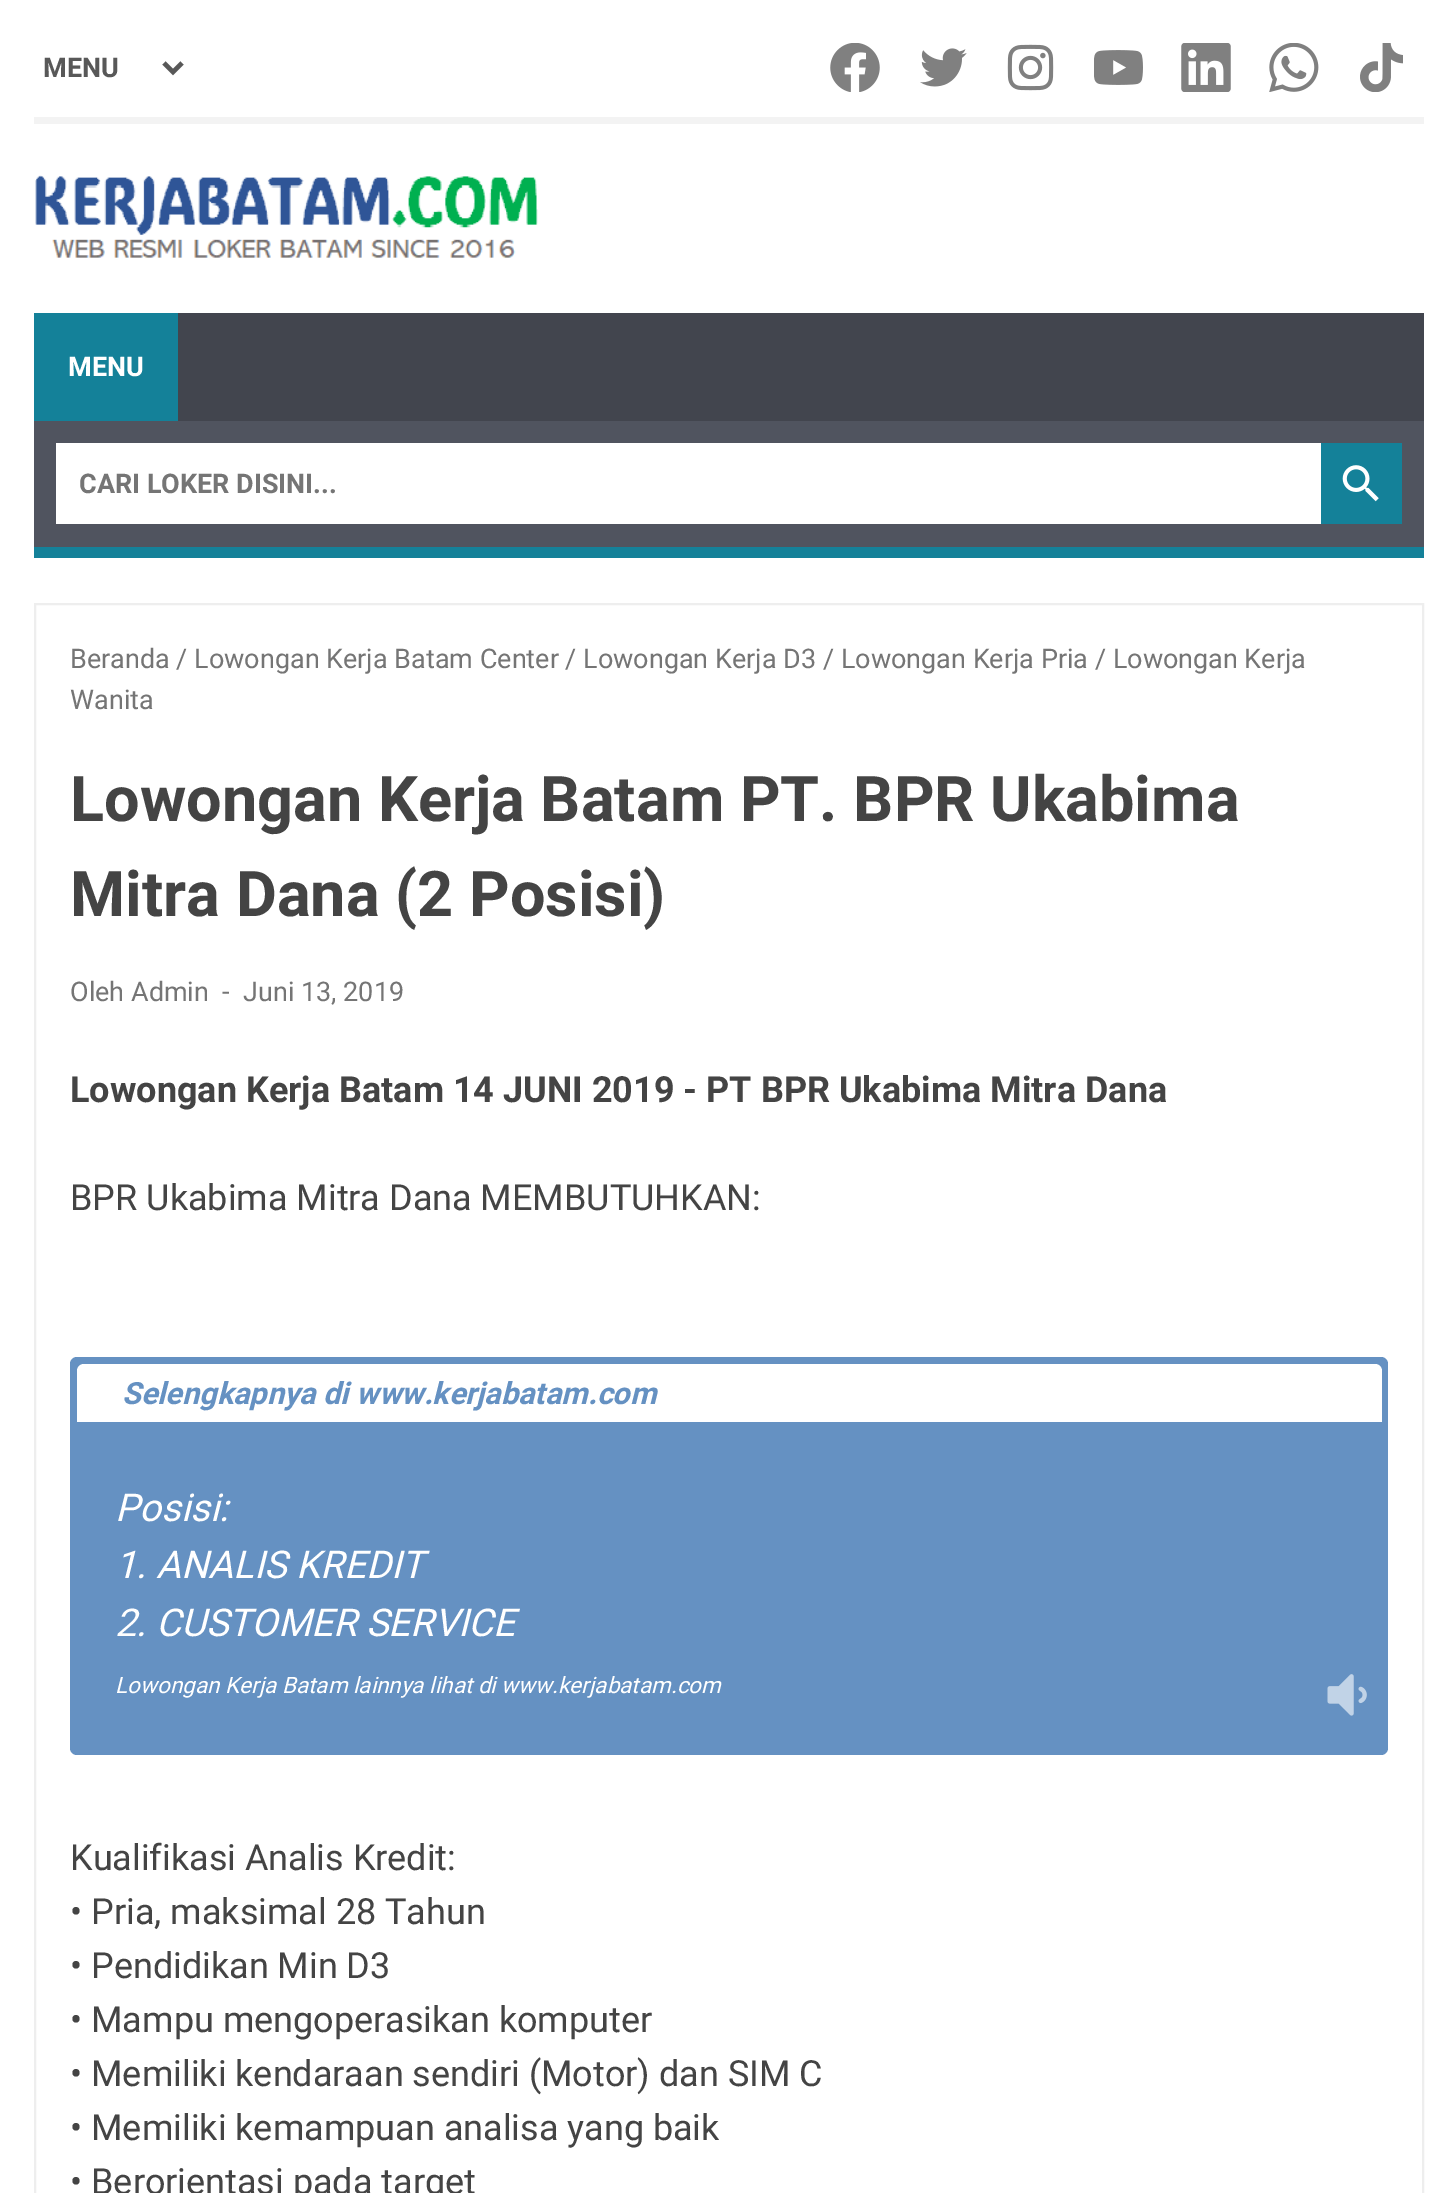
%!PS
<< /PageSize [1456 2193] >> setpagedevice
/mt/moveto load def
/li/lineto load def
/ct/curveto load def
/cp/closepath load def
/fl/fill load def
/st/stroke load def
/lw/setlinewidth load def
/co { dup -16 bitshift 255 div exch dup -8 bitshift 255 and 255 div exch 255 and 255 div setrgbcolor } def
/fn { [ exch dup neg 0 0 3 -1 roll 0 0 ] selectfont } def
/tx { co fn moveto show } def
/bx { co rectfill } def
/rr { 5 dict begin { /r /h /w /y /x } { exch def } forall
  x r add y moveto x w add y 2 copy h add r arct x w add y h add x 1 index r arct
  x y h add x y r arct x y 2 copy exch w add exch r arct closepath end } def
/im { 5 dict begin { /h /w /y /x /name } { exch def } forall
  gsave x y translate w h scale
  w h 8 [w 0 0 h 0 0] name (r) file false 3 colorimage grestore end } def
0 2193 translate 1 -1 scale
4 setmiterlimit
0 0 1456 2193 16#FFFFFF bx
34 117 1390 7 16#F3F3F3 bx
16#585858 co
4.5 lw
164 63 mt 173 72 li 182 63 li st
(media/1.raw) 830 43 50 49 im
(media/2.raw) 920 48 47 39 im
(media/3.raw) 1007 44 47 47 im
(media/4.raw) 1094 50 49 35 im
(media/5.raw) 1181 43 50 49 im
(media/6.raw) 1269 43 50 49 im
(media/7.raw) 1360 43 43 49 im
(media/8.raw) 35 175 503 83 im
178 313 1246 108 16#42454E bx
34 313 144 108 16#148199 bx
34 421 1390 126 16#50545F bx
56 443 1265 81 16#FFFFFF bx
1321 443 81 81 16#148199 bx
(media/9.raw) 1342 465 37 37 im
34 547 1390 11 16#148199 bx
16#EEEEEE co
2 lw
35 604 1388 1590 rectstroke
16#6591C2 co
70 1357 1318 398 7 rr fl
16#FFFFFF co
84 1364 mt 1375 1364 li 1379 1364 1382 1367 1382 1371 ct 1382 1422 li 77 1422 li 77 1371 li 77 1367 80 1364 84 1364 ct cp fl
(media/10.raw) 1327 1674 40 42 im
(MENU) 43 77 /Roboto-Bold 27 16#585858 tx
(MENU) 68 376 /Roboto-Bold 27 16#FFFFFF tx
(CARI LOKER DISINI...) 79 493 /Roboto-Bold 27 16#757575 tx
(Beranda / Lowongan Kerja Batam Center / Lowongan Kerja D3 / Lowongan Kerja Pria / Lowongan Kerja) 70 668 /Roboto-Regular 27 16#757575 tx
(Wanita) 70 709 /Roboto-Regular 27 16#757575 tx
(Lowongan Kerja Batam PT. BPR Ukabima) 70 821 /Roboto-Bold 63 16#444444 tx
(Mitra Dana \(2 Posisi\)) 70 916 /Roboto-Bold 63 16#444444 tx
(Oleh Admin) 70 1001 /Roboto-Regular 27 16#757575 tx
(-) 222 1001 /Roboto-Regular 27 16#757575 tx
(Juni 13, 2019) 243 1001 /Roboto-Regular 27 16#757575 tx
(Lowongan Kerja Batam 14 JUNI 2019 - PT BPR Ukabima Mitra Dana) 70 1102 /Roboto-Bold 36 16#444444 tx
(BPR Ukabima Mitra Dana MEMBUTUHKAN:) 70 1210 /Roboto-Regular 36 16#444444 tx
(Selengkapnya di www.kerjabatam.com) 122 1404 /Roboto-BoldItalic 30.6 16#6591C2 tx
(Posisi:) 115 1521 /Roboto-Italic 38.25 16#FFFFFF tx
(1. ANALIS KREDIT) 115 1578 /Roboto-Italic 38.25 16#FFFFFF tx
(2. CUSTOMER SERVICE) 115 1636 /Roboto-Italic 38.25 16#FFFFFF tx
(Lowongan Kerja Batam lainnya lihat di www.kerjabatam.com) 115 1693 /Roboto-Italic 22.5 16#FFFFFF tx
(Kualifikasi Analis Kredit:) 70 1870 /Roboto-Regular 36 16#444444 tx
(• Pria, maksimal 28 Tahun) 70 1924 /Roboto-Regular 36 16#444444 tx
(• Pendidikan Min D3) 70 1978 /Roboto-Regular 36 16#444444 tx
(• Mampu mengoperasikan komputer) 70 2032 /Roboto-Regular 36 16#444444 tx
(• Memiliki kendaraan sendiri \(Motor\) dan SIM C) 70 2086 /Roboto-Regular 36 16#444444 tx
(• Memiliki kemampuan analisa yang baik) 70 2140 /Roboto-Regular 36 16#444444 tx
(• Berorientasi pada target) 70 2194 /Roboto-Regular 36 16#444444 tx
showpage
